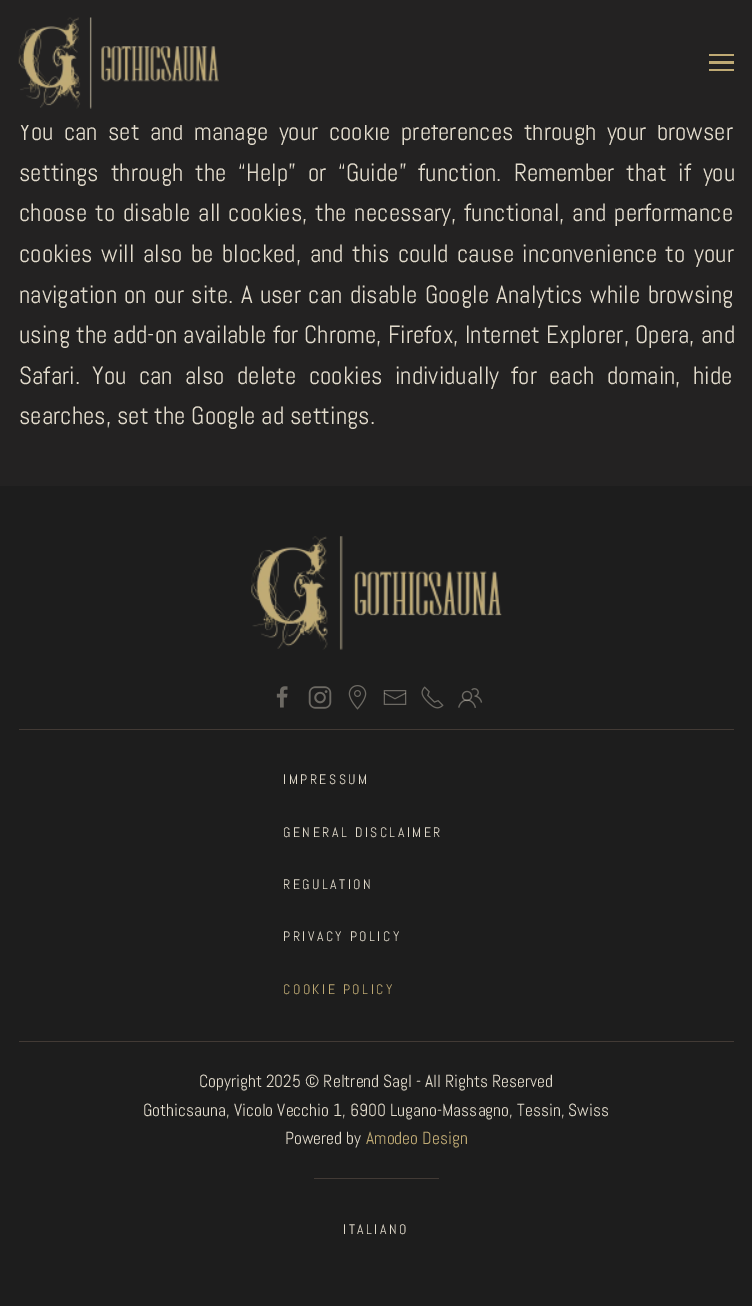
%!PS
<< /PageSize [752 1306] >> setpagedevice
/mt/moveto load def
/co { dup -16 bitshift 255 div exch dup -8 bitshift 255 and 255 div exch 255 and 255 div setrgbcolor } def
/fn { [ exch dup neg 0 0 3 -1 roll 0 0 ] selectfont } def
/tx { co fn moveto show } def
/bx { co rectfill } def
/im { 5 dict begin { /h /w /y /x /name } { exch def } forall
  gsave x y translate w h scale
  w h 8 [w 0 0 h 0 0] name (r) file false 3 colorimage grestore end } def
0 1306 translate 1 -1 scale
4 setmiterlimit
0 0 752 1306 16#232222 bx
(media/1.raw) 18 17 201 92 im
709 54 25 2 16#BFAA74 bx
709 61 25 3 16#BFAA74 bx
709 69 25 2 16#BFAA74 bx
0 486 752 820 16#1D1D1D bx
(media/2.raw) 251 536 251 114 im
(media/3.raw) 276 686 12 22 im
(media/4.raw) 308 686 24 23 im
(media/5.raw) 348 685 19 25 im
(media/6.raw) 383 690 24 15 im
(media/7.raw) 421 686 23 23 im
(media/8.raw) 458 688 25 20 im
19 729 715 1 16#423A35 bx
19 1041 715 1 16#423A35 bx
314 1178 125 1 16#423A35 bx
/Abel-Regular 25 fn
16#E2DBCC co
19 140 mt 4.5 0 32 (You can set and manage your cookie preferences through your browser) widthshow
19 122 642 3 16#232222 bx
16#E2DBCC co
19 181 mt 6 0 32 (settings through the “Help” or “Guide” function. Remember that if you) widthshow
19 221 mt 2 0 32 (choose to disable all cookies, the necessary, functional, and performance) widthshow
19 262 mt 2.75 0 32 (cookies will also be blocked, and this could cause inconvenience to your) widthshow
19 303 mt 1.5 0 32 (navigation on our site. A user can disable Google Analytics while browsing) widthshow
19 343 mt .25 0 32 (using the add-on available for Chrome, Firefox, Internet Explorer, Opera, and) widthshow
19 384 mt 6.5 0 32 (Safari. You can also delete cookies individually for each domain, hide) widthshow
(searches, set the Google ad settings.) 19 424 /Abel-Regular 25 16#E2DBCC tx
/Abel-Regular 13.75 fn
283 784 mt 2.5 0 (IMPRESSUM) ashow
283 837 mt 2.5 0 (GENERAL DISCLAIMER) ashow
283 889 mt 2.5 0 (REGULATION) ashow
283 941 mt 2.5 0 (PRIVACY POLICY) ashow
16#BFAA74 co
283 994 mt 2.5 0 (COOKIE POLICY) ashow
(Copyright 2025 © Reltrend Sagl - All Rights Reserved) 199 1087 /Abel-Regular 17.5 16#E2DBCC tx
(Gothicsauna, Vicolo Vecchio 1, 6900 Lugano-Massagno, Tessin, Swiss) 143 1116 /Abel-Regular 17.5 16#E2DBCC tx
(Powered by) 285 1144 /Abel-Regular 17.5 16#E2DBCC tx
(Amodeo Design) 366 1144 /Abel-Regular 17.5 16#BFAA74 tx
/Abel-Regular 13.75 fn
16#E2DBCC co
343 1234 mt 2.5 0 (ITALIANO) ashow
showpage
